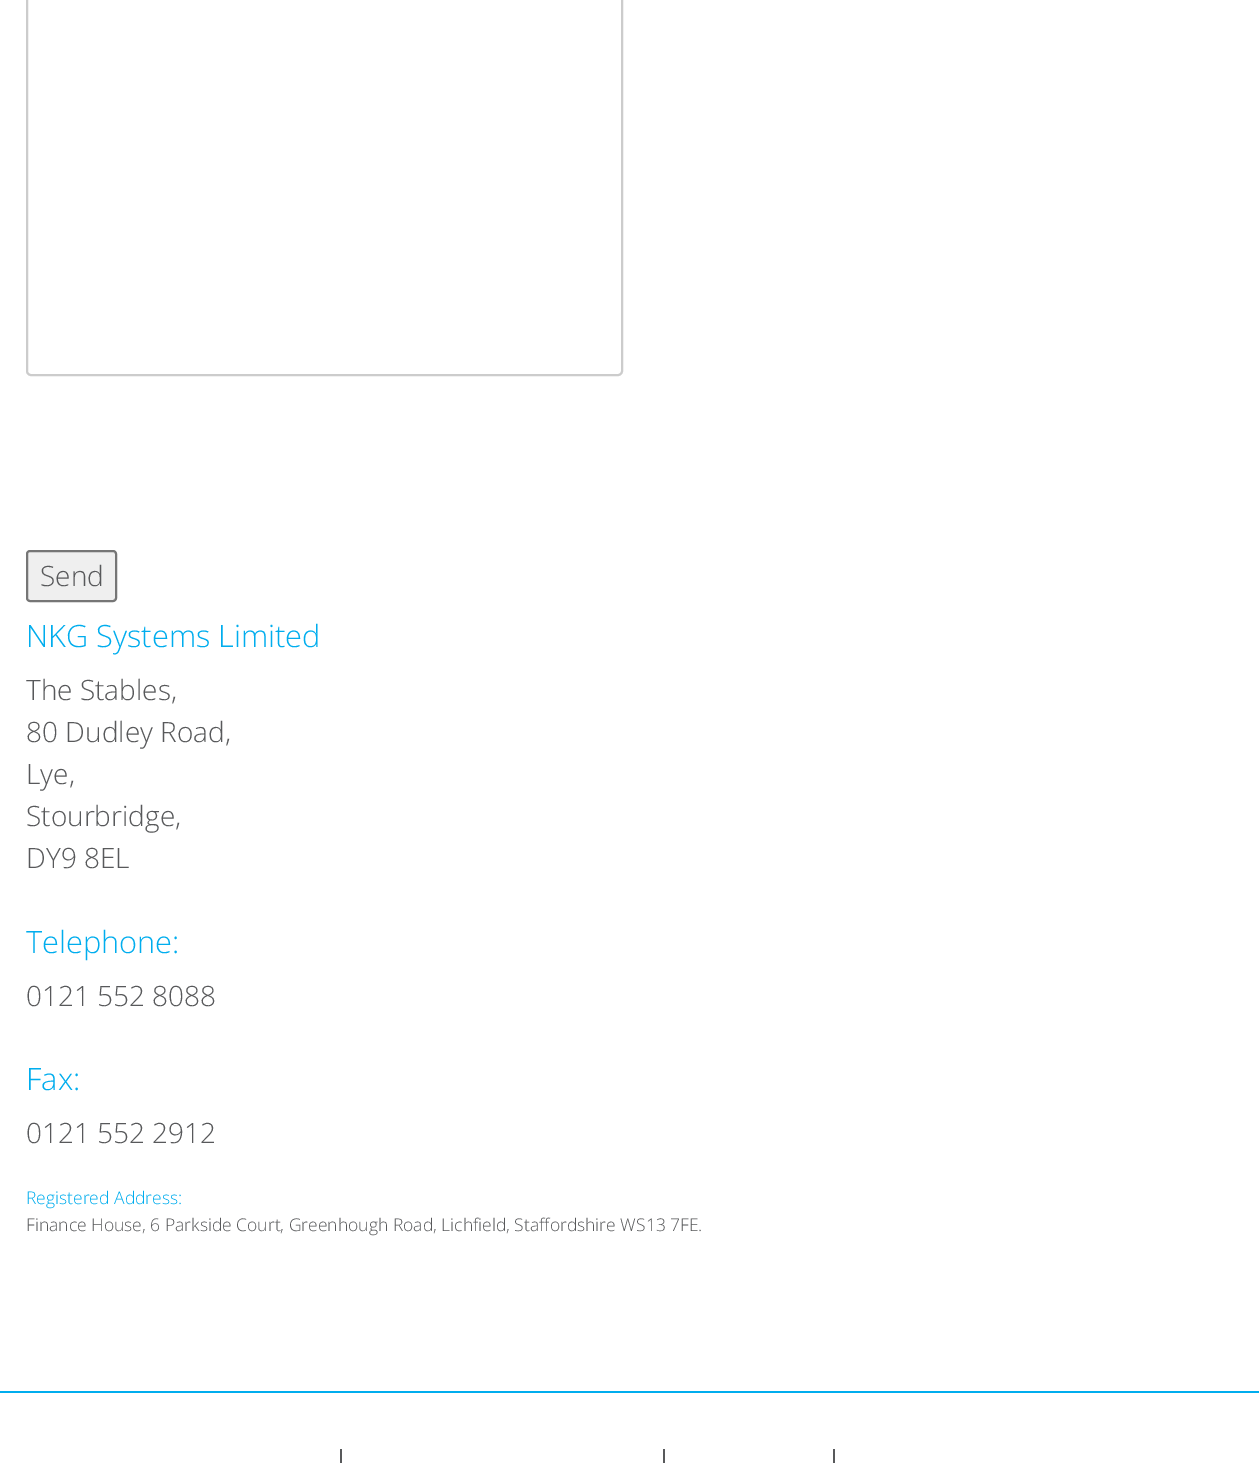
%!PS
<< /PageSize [1259 1463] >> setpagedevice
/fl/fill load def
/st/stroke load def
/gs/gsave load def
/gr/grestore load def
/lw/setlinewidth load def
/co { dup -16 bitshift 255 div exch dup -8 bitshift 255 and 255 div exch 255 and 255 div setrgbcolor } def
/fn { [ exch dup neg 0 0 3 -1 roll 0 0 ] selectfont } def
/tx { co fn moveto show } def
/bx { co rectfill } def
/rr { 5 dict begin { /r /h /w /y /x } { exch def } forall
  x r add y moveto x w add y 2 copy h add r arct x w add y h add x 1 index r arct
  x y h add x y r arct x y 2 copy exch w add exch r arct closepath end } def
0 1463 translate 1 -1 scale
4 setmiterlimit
0 0 1259 1463 16#FFFFFF bx
16#CCCCCC co
2 lw
27 -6 595 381 4 rr st
16#EFEFEF co
27 551 89 50 3 rr gs fl gr
16#767676 co
st
0 1391 1259 2 16#00ADEE bx
340 1449 2 14 16#58595B bx
663 1449 2 14 16#58595B bx
833 1449 2 14 16#58595B bx
(Send) 40 586 /OpenSans-Light 28 16#58595B tx
(NKG Systems Limited) 26 647 /OpenSans-Light 30.75 16#00ADEE tx
(The Stables,) 26 700 /OpenSans-Light 28 16#58595B tx
(80 Dudley Road,) 26 742 /OpenSans-Light 28 16#58595B tx
(Lye,) 26 784 /OpenSans-Light 28 16#58595B tx
(Stourbridge,) 26 826 /OpenSans-Light 28 16#58595B tx
(DY9 8EL) 26 868 /OpenSans-Light 28 16#58595B tx
(Telephone:) 26 953 /OpenSans-Light 30.75 16#00ADEE tx
(0121 552 8088) 26 1006 /OpenSans-Light 28 16#58595B tx
(Fax:) 26 1090 /OpenSans-Light 30.75 16#00ADEE tx
(0121 552 2912) 26 1143 /OpenSans-Light 28 16#58595B tx
(Registered Address:) 26 1204 /OpenSans-Light 17.5 16#00ADEE tx
(Finance House, 6 Parkside Court, Greenhough Road, Lichfield, Staffordshire WS13 7FE.) 26 1231 /OpenSans-Light 17.5 16#58595B tx
showpage
